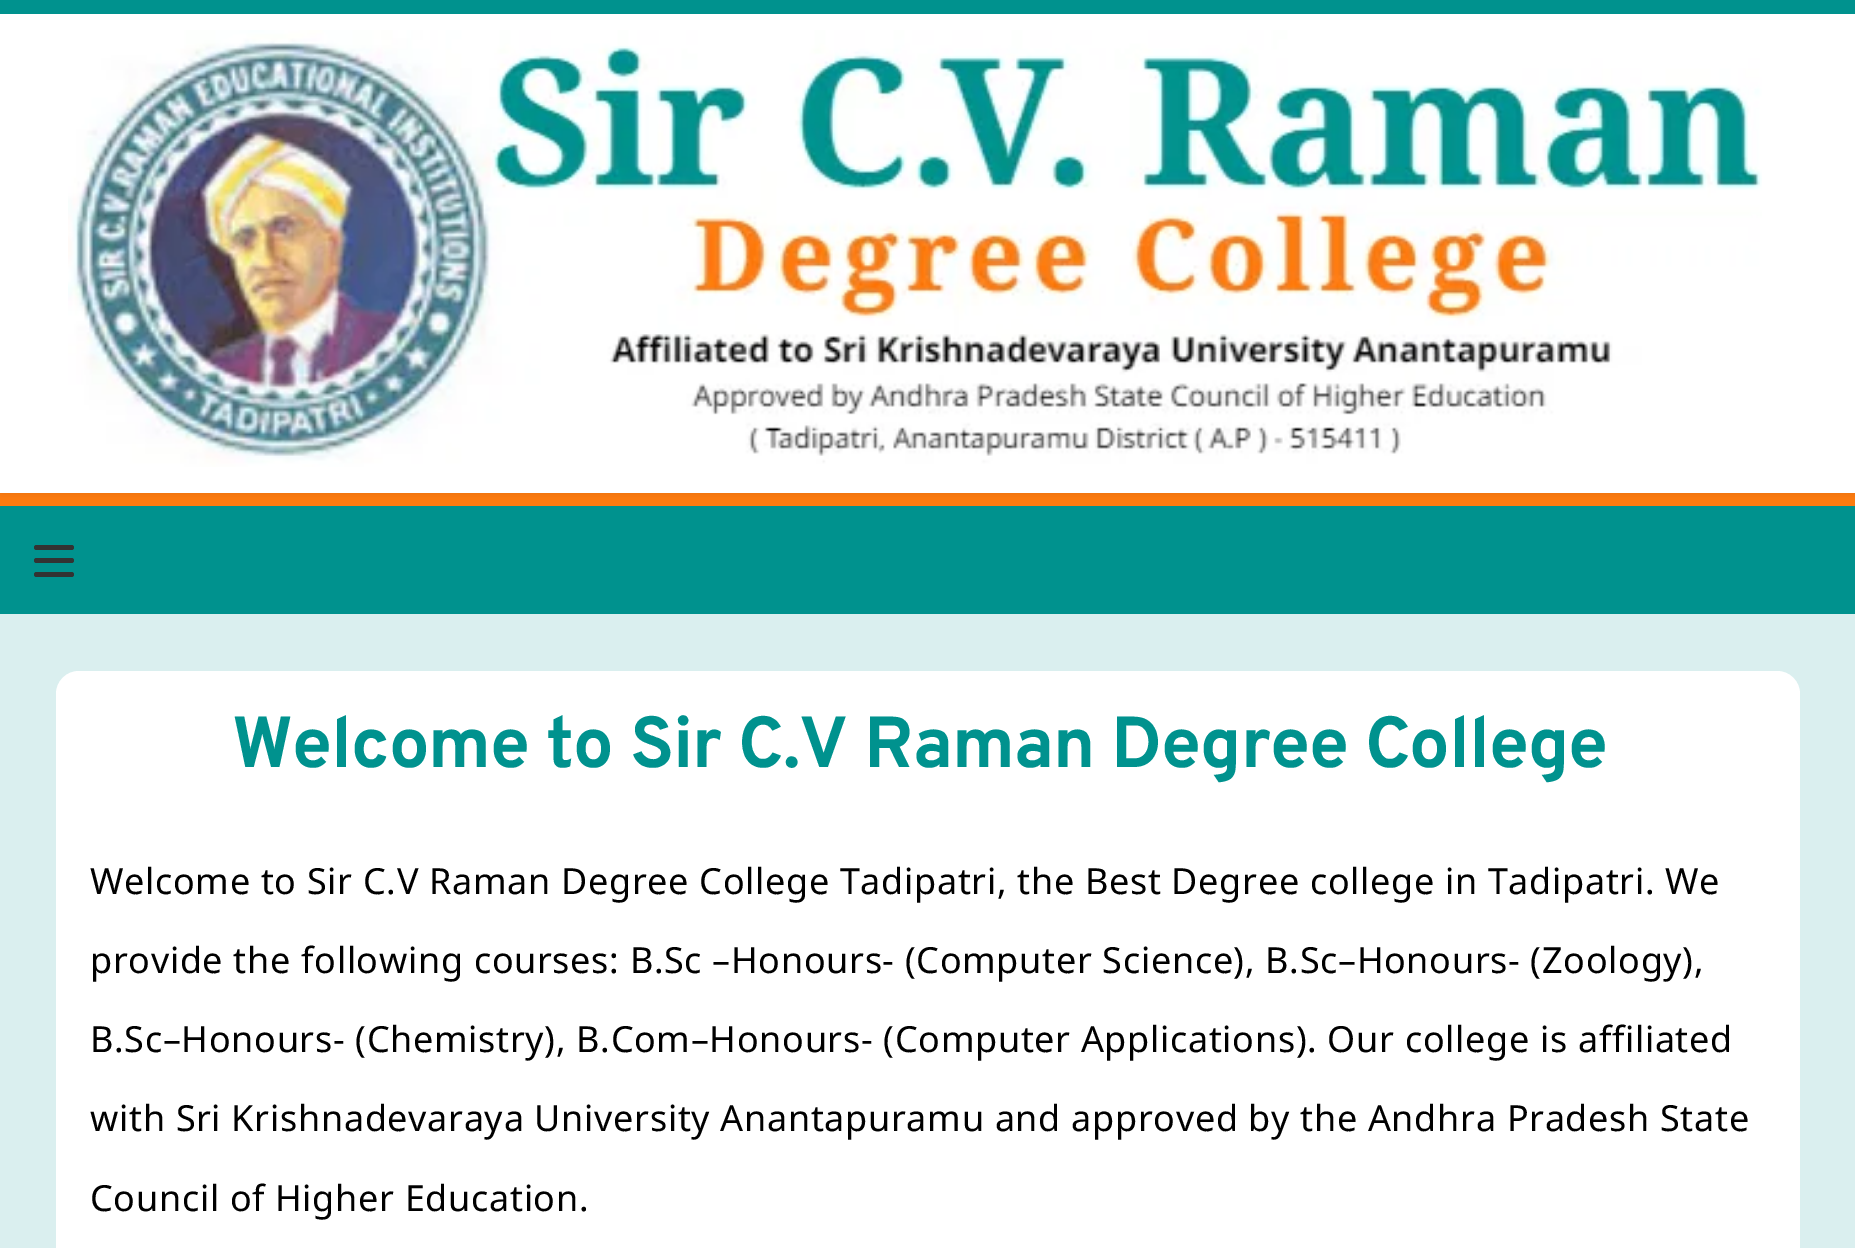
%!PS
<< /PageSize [1855 1248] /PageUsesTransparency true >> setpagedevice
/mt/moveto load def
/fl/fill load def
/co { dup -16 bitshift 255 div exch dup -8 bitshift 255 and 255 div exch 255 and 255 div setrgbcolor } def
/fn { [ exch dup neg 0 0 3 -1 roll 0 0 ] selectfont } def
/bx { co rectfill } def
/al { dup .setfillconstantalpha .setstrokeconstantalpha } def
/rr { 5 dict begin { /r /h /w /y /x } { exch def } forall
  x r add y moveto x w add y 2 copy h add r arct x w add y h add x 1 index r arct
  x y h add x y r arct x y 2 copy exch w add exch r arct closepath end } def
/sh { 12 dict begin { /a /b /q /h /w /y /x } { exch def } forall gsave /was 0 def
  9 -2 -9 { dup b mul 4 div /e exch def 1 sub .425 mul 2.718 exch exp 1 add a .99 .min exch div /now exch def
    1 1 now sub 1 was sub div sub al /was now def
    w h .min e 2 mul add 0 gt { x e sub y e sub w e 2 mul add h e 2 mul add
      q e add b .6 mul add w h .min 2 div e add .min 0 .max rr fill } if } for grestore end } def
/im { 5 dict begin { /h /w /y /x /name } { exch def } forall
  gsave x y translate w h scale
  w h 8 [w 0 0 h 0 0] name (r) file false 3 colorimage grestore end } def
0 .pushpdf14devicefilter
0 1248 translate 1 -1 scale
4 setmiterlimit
0 0 1855 1248 16#FF7B0F bx
0 506 1855 108 16#00928E bx
16#000000 co
0 0 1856 493 0 5.5 .1 sh
0 0 1855 14 16#00928E bx
0 14 1855 479 16#FFFFFF bx
(media/1.raw) 68 30 1694 437 im
16#333333 co
34 545 40 5 2.5 rr fl
34 558 40 5 2.5 rr fl
34 572 40 5 2.5 rr fl
0 614 1855 634 16#DAEFEF bx
16#FFFFFF co
56 671 1744 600 23 rr fl
/Overpass-Bold 72 fn
16#00928E co
232 767 mt -1.1 0 (Welcome to Sir C.V Raman Degree College) ashow
/NotoSans-Regular 36 fn
16#000000 co
90 894 mt .67 0 (Welcome to Sir C.V Raman Degree College Tadipatri, the Best Degree college in Tadipatri. We) ashow
90 973 mt .67 0 (provide the following courses: B.Sc –Honours- \(Computer Science\), B.Sc–Honours- \(Zoology\),) ashow
90 1052 mt .67 0 (B.Sc–Honours- \(Chemistry\), B.Com–Honours- \(Computer Applications\). Our college is affiliated) ashow
90 1131 mt .67 0 (with Sri Krishnadevaraya University Anantapuramu and approved by the Andhra Pradesh State) ashow
90 1211 mt .67 0 (Council of Higher Education.) ashow
.poppdf14devicefilter showpage
